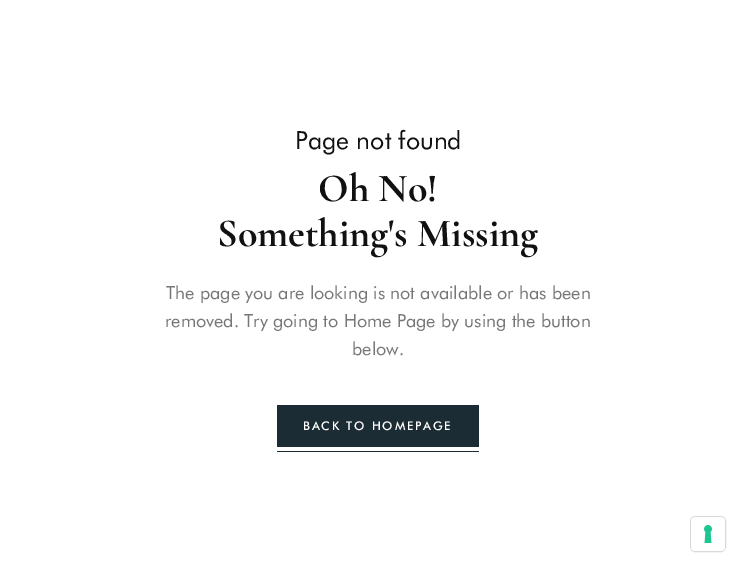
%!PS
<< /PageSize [741 567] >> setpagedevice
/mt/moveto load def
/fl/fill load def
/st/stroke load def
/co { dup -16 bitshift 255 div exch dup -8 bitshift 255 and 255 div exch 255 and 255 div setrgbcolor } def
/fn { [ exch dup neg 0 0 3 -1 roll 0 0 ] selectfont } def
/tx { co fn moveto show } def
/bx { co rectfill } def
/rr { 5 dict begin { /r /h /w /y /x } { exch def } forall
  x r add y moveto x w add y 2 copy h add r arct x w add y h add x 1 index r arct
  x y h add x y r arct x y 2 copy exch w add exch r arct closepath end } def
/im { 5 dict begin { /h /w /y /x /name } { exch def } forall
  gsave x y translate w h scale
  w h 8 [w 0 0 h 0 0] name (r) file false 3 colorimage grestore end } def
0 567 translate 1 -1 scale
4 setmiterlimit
0 0 741 567 16#FFFFFF bx
277 405 202 42 16#1C2C34 bx
277 451 202 1 16#1C2C34 bx
16#D9D9D9 co
690.5 516.5 35 35 4.5 rr st
16#FFFFFF co
691 517 34 34 4 rr fl
(media/1.raw) 704 525 8 18 im
(Page not found) 295 149 /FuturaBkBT-Regular 25 16#111111 tx
(Oh No!) 318 201 /CormorantGaramond-Bold 40 16#111111 tx
(Something's Missing) 217 246 /CormorantGaramond-Bold 40 16#111111 tx
(The page you are looking is not available or has been) 166 299 /FuturaBkBT-Regular 18 16#777777 tx
(removed. Try going to Home Page by using the button) 165 327 /FuturaBkBT-Regular 18 16#777777 tx
(below.) 352 355 /FuturaBkBT-Regular 18 16#777777 tx
/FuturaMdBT-Medium 12 fn
16#FFFFFF co
303 430 mt 1.75 0 (BACK TO HOMEPAGE) ashow
showpage
